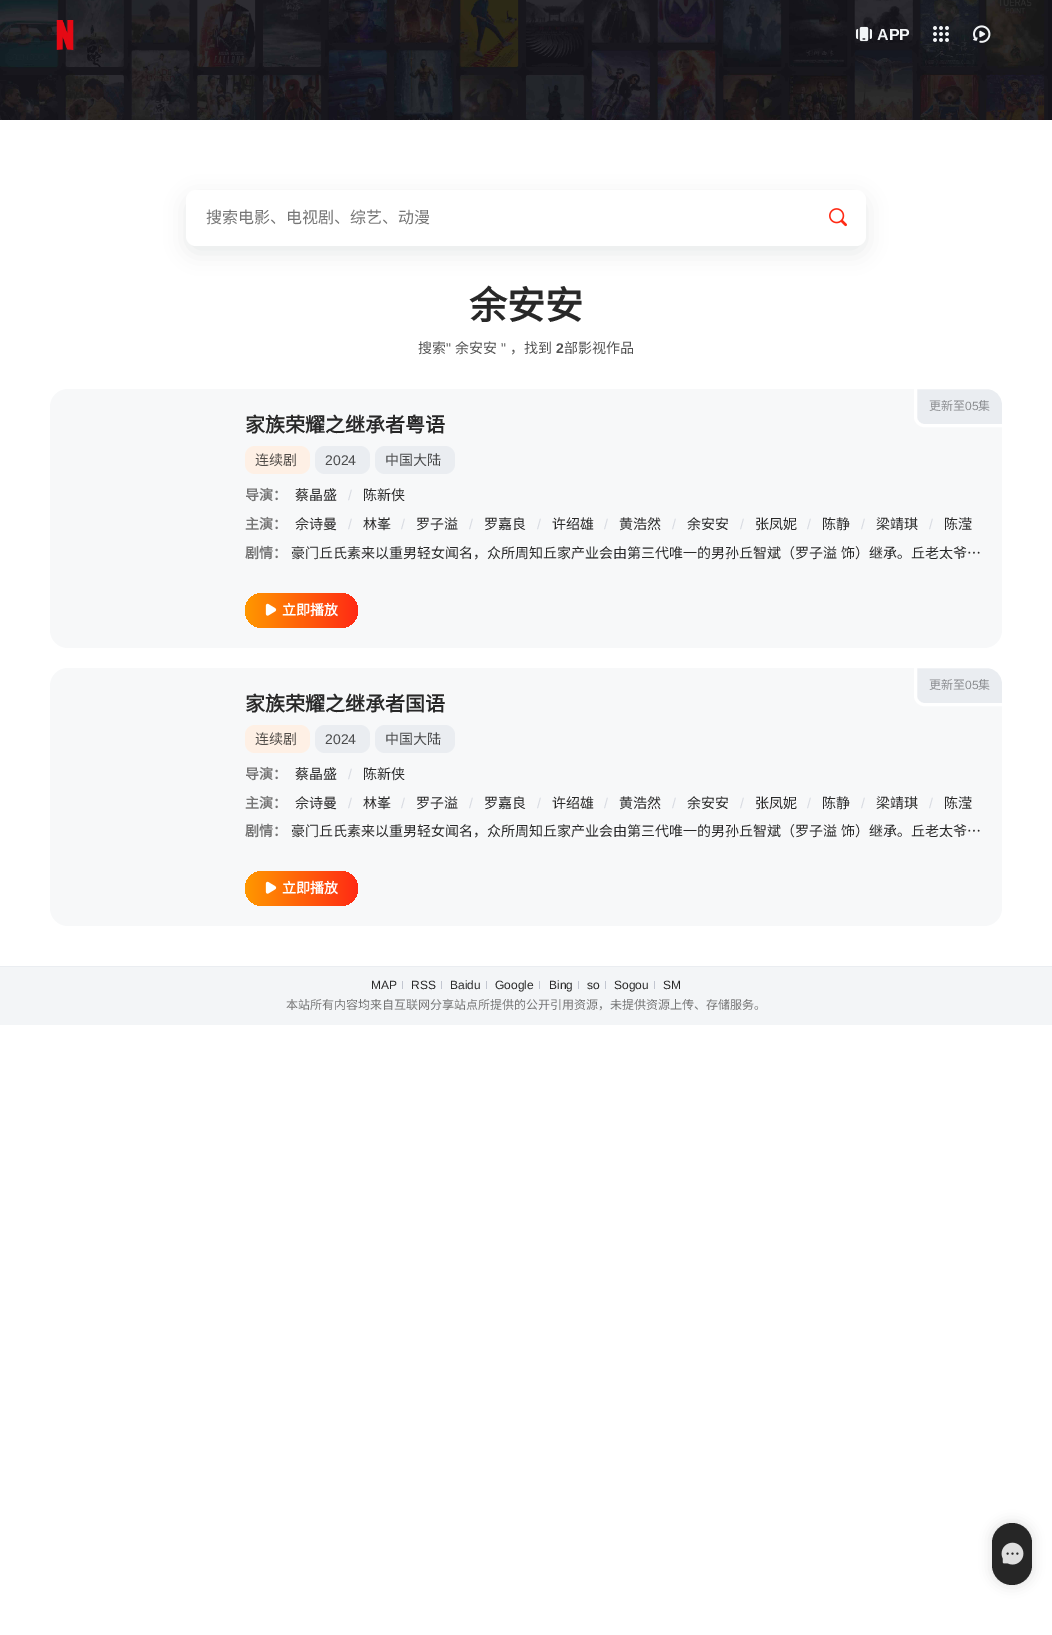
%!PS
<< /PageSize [1052 1635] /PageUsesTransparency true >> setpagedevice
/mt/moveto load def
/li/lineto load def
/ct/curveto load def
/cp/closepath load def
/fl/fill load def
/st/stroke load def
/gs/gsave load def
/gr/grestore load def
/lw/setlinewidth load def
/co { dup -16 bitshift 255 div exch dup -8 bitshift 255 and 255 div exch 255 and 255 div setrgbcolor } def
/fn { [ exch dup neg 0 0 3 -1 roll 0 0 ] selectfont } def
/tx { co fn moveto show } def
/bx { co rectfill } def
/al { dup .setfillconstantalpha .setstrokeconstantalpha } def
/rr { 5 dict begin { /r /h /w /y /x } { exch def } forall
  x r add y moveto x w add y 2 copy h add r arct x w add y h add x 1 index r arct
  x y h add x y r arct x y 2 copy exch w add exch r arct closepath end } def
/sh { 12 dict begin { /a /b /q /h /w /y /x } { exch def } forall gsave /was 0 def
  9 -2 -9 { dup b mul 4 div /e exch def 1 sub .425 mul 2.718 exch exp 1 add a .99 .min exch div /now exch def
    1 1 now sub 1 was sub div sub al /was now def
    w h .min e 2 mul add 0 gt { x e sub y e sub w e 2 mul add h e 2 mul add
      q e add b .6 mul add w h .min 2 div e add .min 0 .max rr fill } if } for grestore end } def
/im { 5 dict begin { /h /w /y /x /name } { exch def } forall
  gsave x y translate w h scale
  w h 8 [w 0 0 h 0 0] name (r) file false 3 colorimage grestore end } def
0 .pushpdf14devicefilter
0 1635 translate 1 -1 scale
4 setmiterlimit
0 0 1052 1635 16#FFFFFF bx
(media/1.raw) 0 0 1052 120 im
(media/2.raw) 56 20 18 30 im
(media/3.raw) 856 26 16 16 im
(media/4.raw) 933 26 16 16 im
(media/5.raw) 973 25 18 18 im
16#959DA5 co
186 197 680 56 10 10.5 .22 sh
16#FFFFFF co
186 190 680 56 10 rr fl
(media/6.raw) 829 208 18 19 im
16#F7F8F9 co
50 389 952 259 18 rr fl
16#EAEDF1 co
915.5 387.5 mt 987 387.5 li 996 387.5 1003.5 395 1003.5 404 ct 1003.5 425.5 li 924 425.5 li 919.5 425.5 915.5 421.5 915.5 417 ct cp gs fl gr
16#FFFFFF co
3 lw
st
16#FEF0E5 co
245 446 65 28 10 rr fl
16#EAEDF1 co
315 446 55 28 10 rr fl
375 446 80 28 10 rr fl
gs 245 593 113 35 17.5 rr clip newpath
<< /ShadingType 2 /ColorSpace /DeviceRGB /Coords [245 611 358 611] /Extend [true true] /Function << /FunctionType 2 /Domain [0 1] /C0 [1 .596 0] /C1 [1 .165 .078] /N 1 >> >> shfill gr
(media/7.raw) 265 603 12 13 im
16#F7F8F9 co
50 668 952 258 18 rr fl
16#EAEDF1 co
915.5 666.5 mt 987 666.5 li 996 666.5 1003.5 674 1003.5 683 ct 1003.5 704.5 li 924 704.5 li 919.5 704.5 915.5 700.5 915.5 696 ct cp gs fl gr
16#FFFFFF co
st
16#FEF0E5 co
245 725 65 28 10 rr fl
16#EAEDF1 co
315 725 55 28 10 rr fl
375 725 80 28 10 rr fl
gs 245 871 113 35 17.5 rr clip newpath
<< /ShadingType 2 /ColorSpace /DeviceRGB /Coords [245 889 358 889] /Extend [true true] /Function << /FunctionType 2 /Domain [0 1] /C0 [1 .596 0] /C1 [1 .165 .078] /N 1 >> >> shfill gr
(media/7.raw) 265 881 12 13 im
0 967 1052 58 16#F3F5F7 bx
0 966 1052 1 16#EAEDF1 bx
16#C2C6D0 co
402 981 1 8 .5 rr fl
441 981 1 8 .5 rr fl
486 981 1 8 .5 rr fl
539 981 1 8 .5 rr fl
578 981 1 8 .5 rr fl
605 981 1 8 .5 rr fl
654 981 1 8 .5 rr fl
16#262626 co
992 1523 40 62 20 6 .15 sh
992 1523 40 62 20 rr fl
(media/8.raw) 1001 1542 23 23 im
(APP) 877 40 /LiberationSans-Bold 16 16#F3F5F7 tx
(搜索电影、电视剧、综艺、动漫) 206 223 /NotoSansCJKSC-Regular 16 16#757575 tx
(余安安) 469 319 /NotoSansCJKSC-Bold 38 16#282828 tx
(搜索) 418 353 /NotoSansCJKSC-Regular 14 16#525252 tx
(") 446 353 /LiberationSans-Regular 14 16#525252 tx
(余安安) 455 353 /NotoSansCJKSC-Regular 14 16#525252 tx
(") 501 353 /LiberationSans-Regular 14 16#525252 tx
(，找到) 510 353 /NotoSansCJKSC-Regular 14 16#525252 tx
(2) 556 353 /LiberationSans-Bold 14 16#525252 tx
(部影视作品) 564 353 /NotoSansCJKSC-Regular 14 16#525252 tx
(更新至) 929 410 /NotoSansCJKSC-Regular 12 16#8C8E91 tx
(05) 965 410 /LiberationSans-Regular 12 16#8C8E91 tx
(集) 978 410 /NotoSansCJKSC-Regular 12 16#8C8E91 tx
(家族荣耀之继承者粤语) 245 432 /NotoSansCJKSC-Bold 20 16#282828 tx
(连续剧) 255 465 /NotoSansCJKSC-Regular 14 16#514D49 tx
(2024) 325 465 /LiberationSans-Regular 14 16#4B4C4D tx
(中国大陆) 385 465 /NotoSansCJKSC-Regular 14 16#4B4C4D tx
(导演：) 245 500 /NotoSansCJKSC-Bold 14 16#757575 tx
(蔡晶盛) 295 500 /NotoSansCJKSC-Regular 14 16#282828 tx
(/) 348 500 /LiberationSans-Regular 14 16#D7DAE1 tx
(陈新侠) 363 500 /NotoSansCJKSC-Regular 14 16#282828 tx
(主演：) 245 529 /NotoSansCJKSC-Bold 14 16#757575 tx
(佘诗曼) 295 529 /NotoSansCJKSC-Regular 14 16#282828 tx
(/) 348 529 /LiberationSans-Regular 14 16#D7DAE1 tx
(林峯) 363 529 /NotoSansCJKSC-Regular 14 16#282828 tx
(/) 401 529 /LiberationSans-Regular 14 16#D7DAE1 tx
(罗子溢) 416 529 /NotoSansCJKSC-Regular 14 16#282828 tx
(/) 469 529 /LiberationSans-Regular 14 16#D7DAE1 tx
(罗嘉良) 484 529 /NotoSansCJKSC-Regular 14 16#282828 tx
(/) 537 529 /LiberationSans-Regular 14 16#D7DAE1 tx
(许绍雄) 552 529 /NotoSansCJKSC-Regular 14 16#282828 tx
(/) 604 529 /LiberationSans-Regular 14 16#D7DAE1 tx
(黄浩然) 619 529 /NotoSansCJKSC-Regular 14 16#282828 tx
(/) 672 529 /LiberationSans-Regular 14 16#D7DAE1 tx
(余安安) 687 529 /NotoSansCJKSC-Regular 14 16#282828 tx
(/) 740 529 /LiberationSans-Regular 14 16#D7DAE1 tx
(张凤妮) 755 529 /NotoSansCJKSC-Regular 14 16#282828 tx
(/) 807 529 /LiberationSans-Regular 14 16#D7DAE1 tx
(陈静) 822 529 /NotoSansCJKSC-Regular 14 16#282828 tx
(/) 861 529 /LiberationSans-Regular 14 16#D7DAE1 tx
(梁靖琪) 876 529 /NotoSansCJKSC-Regular 14 16#282828 tx
(/) 929 529 /LiberationSans-Regular 14 16#D7DAE1 tx
(陈滢) 944 529 /NotoSansCJKSC-Regular 14 16#282828 tx
(剧情：) 245 558 /NotoSansCJKSC-Bold 14 16#757575 tx
/NotoSansCJKSC-Regular 14 fn
16#282828 co
291 558 mt 1 0 32 (豪门丘氏素来以重男轻女闻名，众所周知丘家产业会由第三代唯一的男孙丘智斌（罗子溢 饰）继承。丘老太爷…) widthshow
(立即播放) 282 615 /NotoSansCJKSC-Bold 14 16#FFFFFF tx
(更新至) 929 689 /NotoSansCJKSC-Regular 12 16#8C8E91 tx
(05) 965 689 /LiberationSans-Regular 12 16#8C8E91 tx
(集) 978 689 /NotoSansCJKSC-Regular 12 16#8C8E91 tx
(家族荣耀之继承者国语) 245 711 /NotoSansCJKSC-Bold 20 16#282828 tx
(连续剧) 255 744 /NotoSansCJKSC-Regular 14 16#514D49 tx
(2024) 325 744 /LiberationSans-Regular 14 16#4B4C4D tx
(中国大陆) 385 744 /NotoSansCJKSC-Regular 14 16#4B4C4D tx
(导演：) 245 779 /NotoSansCJKSC-Bold 14 16#757575 tx
(蔡晶盛) 295 779 /NotoSansCJKSC-Regular 14 16#282828 tx
(/) 348 779 /LiberationSans-Regular 14 16#D7DAE1 tx
(陈新侠) 363 779 /NotoSansCJKSC-Regular 14 16#282828 tx
(主演：) 245 808 /NotoSansCJKSC-Bold 14 16#757575 tx
(佘诗曼) 295 808 /NotoSansCJKSC-Regular 14 16#282828 tx
(/) 348 808 /LiberationSans-Regular 14 16#D7DAE1 tx
(林峯) 363 808 /NotoSansCJKSC-Regular 14 16#282828 tx
(/) 401 808 /LiberationSans-Regular 14 16#D7DAE1 tx
(罗子溢) 416 808 /NotoSansCJKSC-Regular 14 16#282828 tx
(/) 469 808 /LiberationSans-Regular 14 16#D7DAE1 tx
(罗嘉良) 484 808 /NotoSansCJKSC-Regular 14 16#282828 tx
(/) 537 808 /LiberationSans-Regular 14 16#D7DAE1 tx
(许绍雄) 552 808 /NotoSansCJKSC-Regular 14 16#282828 tx
(/) 604 808 /LiberationSans-Regular 14 16#D7DAE1 tx
(黄浩然) 619 808 /NotoSansCJKSC-Regular 14 16#282828 tx
(/) 672 808 /LiberationSans-Regular 14 16#D7DAE1 tx
(余安安) 687 808 /NotoSansCJKSC-Regular 14 16#282828 tx
(/) 740 808 /LiberationSans-Regular 14 16#D7DAE1 tx
(张凤妮) 755 808 /NotoSansCJKSC-Regular 14 16#282828 tx
(/) 807 808 /LiberationSans-Regular 14 16#D7DAE1 tx
(陈静) 822 808 /NotoSansCJKSC-Regular 14 16#282828 tx
(/) 861 808 /LiberationSans-Regular 14 16#D7DAE1 tx
(梁靖琪) 876 808 /NotoSansCJKSC-Regular 14 16#282828 tx
(/) 929 808 /LiberationSans-Regular 14 16#D7DAE1 tx
(陈滢) 944 808 /NotoSansCJKSC-Regular 14 16#282828 tx
(剧情：) 245 836 /NotoSansCJKSC-Bold 14 16#757575 tx
/NotoSansCJKSC-Regular 14 fn
16#282828 co
291 836 mt 1 0 32 (豪门丘氏素来以重男轻女闻名，众所周知丘家产业会由第三代唯一的男孙丘智斌（罗子溢 饰）继承。丘老太爷…) widthshow
(立即播放) 282 893 /NotoSansCJKSC-Bold 14 16#FFFFFF tx
(MAP) 371 989 /LiberationSans-Regular 12 16#282828 tx
(RSS) 411 989 /LiberationSans-Regular 12 16#282828 tx
(Baidu) 450 989 /LiberationSans-Regular 12 16#282828 tx
(Google) 495 989 /LiberationSans-Regular 12 16#282828 tx
(Bing) 549 989 /LiberationSans-Regular 12 16#282828 tx
(so) 587 989 /LiberationSans-Regular 12 16#282828 tx
(Sogou) 614 989 /LiberationSans-Regular 12 16#282828 tx
(SM) 663 989 /LiberationSans-Regular 12 16#282828 tx
(本站所有内容均来自互联网分享站点所提供的公开引用资源，未提供资源上传、存储服务。) 286 1009 /NotoSansCJKSC-Regular 12 16#757575 tx
.poppdf14devicefilter showpage
